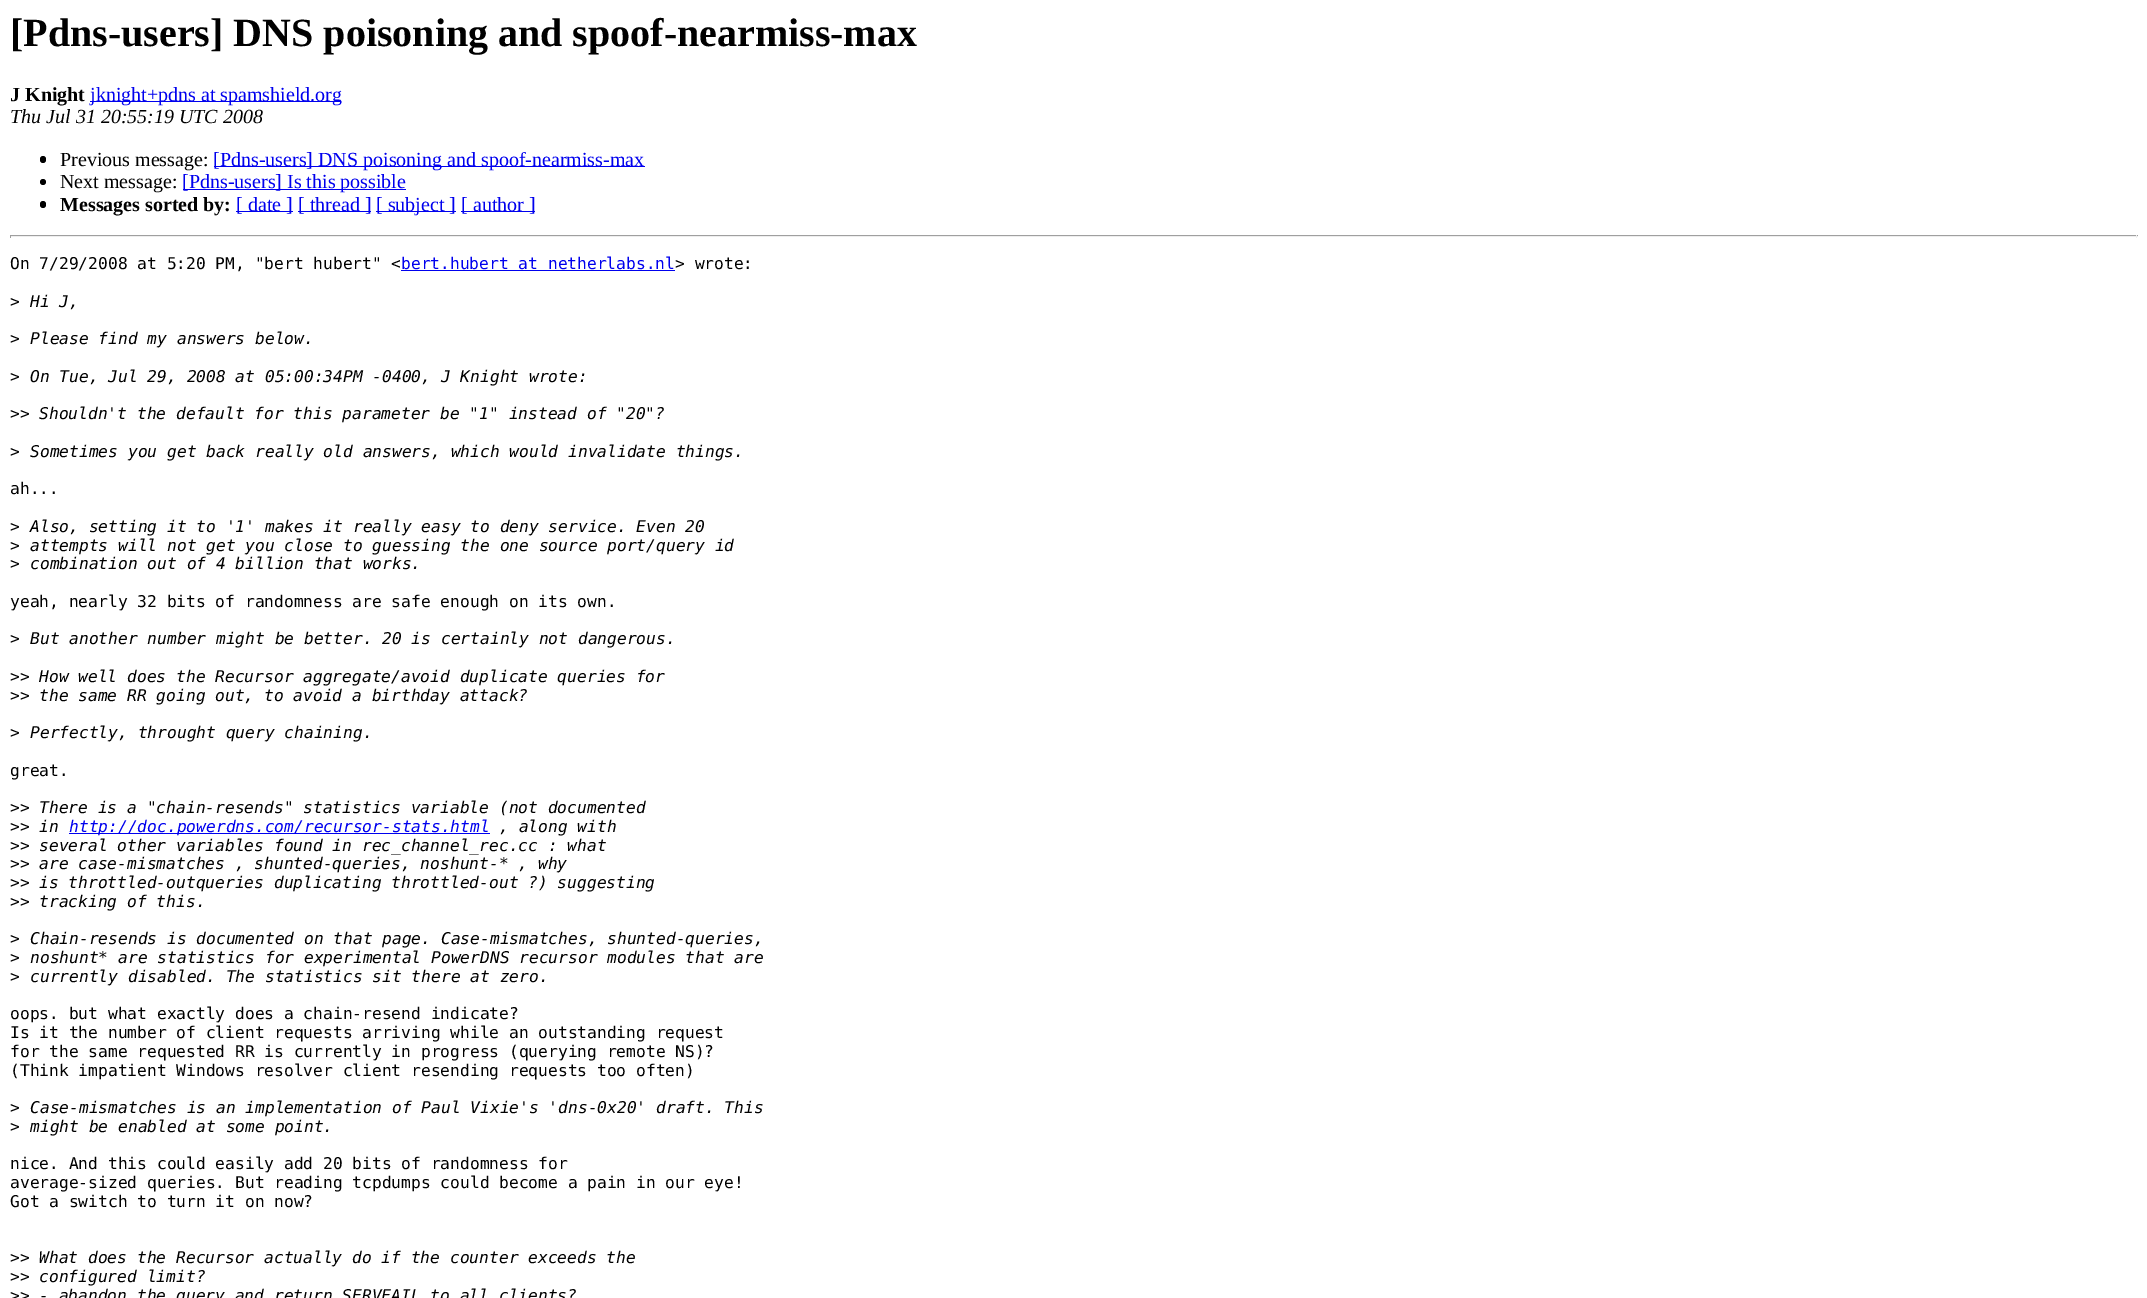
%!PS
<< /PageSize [2147 1298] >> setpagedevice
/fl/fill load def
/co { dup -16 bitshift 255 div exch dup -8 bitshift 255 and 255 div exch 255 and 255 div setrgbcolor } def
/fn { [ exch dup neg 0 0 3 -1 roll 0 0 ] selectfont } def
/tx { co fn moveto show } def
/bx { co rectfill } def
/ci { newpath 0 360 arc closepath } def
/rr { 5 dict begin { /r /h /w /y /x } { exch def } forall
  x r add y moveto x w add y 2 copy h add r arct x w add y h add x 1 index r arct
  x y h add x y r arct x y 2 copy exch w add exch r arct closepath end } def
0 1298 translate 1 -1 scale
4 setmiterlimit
0 0 2147 1298 16#FFFFFF bx
90 101 251 1 16#0000EE bx
16#000000 co
40 156 6 7 3 rr fl
214 166 431 1 16#0000EE bx
16#000000 co
43 182 3 ci fl
183 189 223 1 16#0000EE bx
16#000000 co
40 201 6 7 3 rr fl
236 211 57 1 16#0000EE bx
298 211 73 1 16#0000EE bx
376 211 80 1 16#0000EE bx
461 211 74 1 16#0000EE bx
10 235 2128 1 16#9F9F9F bx
2136 235 1 3 16#EEEEEE bx
10 236 2128 1 16#EEEEEE bx
10 235 1 3 16#9F9F9F bx
401 270 274 1 16#0000EE bx
69 833 421 1 16#0000EE bx
([Pdns-users] DNS poisoning and spoof-nearmiss-max) 10 46 /LiberationSerif-Bold 40 16#000000 tx
(J Knight) 10 101 /LiberationSerif-Bold 20 16#000000 tx
(jknight+pdns at spamshield.org) 90 101 /LiberationSerif-Regular 20 16#0000EE tx
(Thu Jul 31 20:55:19 UTC 2008) 10 123 /LiberationSerif-Italic 20 16#000000 tx
(Previous message:) 60 166 /LiberationSerif-Regular 20 16#000000 tx
([Pdns-users] DNS poisoning and spoof-nearmiss-max) 213 166 /LiberationSerif-Regular 20 16#0000EE tx
(Next message:) 60 188 /LiberationSerif-Regular 20 16#000000 tx
([Pdns-users] Is this possible) 182 188 /LiberationSerif-Regular 20 16#0000EE tx
(Messages sorted by:) 60 211 /LiberationSerif-Bold 20 16#000000 tx
([ date ]) 236 211 /LiberationSerif-Regular 20 16#0000EE tx
([ thread ]) 298 211 /LiberationSerif-Regular 20 16#0000EE tx
([ subject ]) 376 211 /LiberationSerif-Regular 20 16#0000EE tx
([ author ]) 461 211 /LiberationSerif-Regular 20 16#0000EE tx
(On 7/29/2008 at 5:20 PM, "bert hubert" <) 10 269 /DejaVuSansMono-Regular 16.25 16#000000 tx
(bert.hubert at netherlabs.nl) 401 269 /DejaVuSansMono-Regular 16.25 16#0000EE tx
(> wrote:) 675 269 /DejaVuSansMono-Regular 16.25 16#000000 tx
(>) 10 307 /DejaVuSansMono-Regular 16.25 16#000000 tx
(Hi J,) 30 307 /DejaVuSansMono-Italic 16.25 16#000000 tx
(>) 10 344 /DejaVuSansMono-Regular 16.25 16#000000 tx
(Please find my answers below.) 30 344 /DejaVuSansMono-Italic 16.25 16#000000 tx
(>) 10 382 /DejaVuSansMono-Regular 16.25 16#000000 tx
(On Tue, Jul 29, 2008 at 05:00:34PM -0400, J Knight wrote:) 30 382 /DejaVuSansMono-Italic 16.25 16#000000 tx
(>>) 10 419 /DejaVuSansMono-Regular 16.25 16#000000 tx
(Shouldn't the default for this parameter be "1" instead of "20"?) 39 419 /DejaVuSansMono-Italic 16.25 16#000000 tx
(>) 10 457 /DejaVuSansMono-Regular 16.25 16#000000 tx
(Sometimes you get back really old answers, which would invalidate things.) 30 457 /DejaVuSansMono-Italic 16.25 16#000000 tx
(ah...) 10 494 /DejaVuSansMono-Regular 16.25 16#000000 tx
(>) 10 532 /DejaVuSansMono-Regular 16.25 16#000000 tx
(Also, setting it to '1' makes it really easy to deny service. Even 20) 30 532 /DejaVuSansMono-Italic 16.25 16#000000 tx
(>) 10 551 /DejaVuSansMono-Regular 16.25 16#000000 tx
(attempts will not get you close to guessing the one source port/query id) 30 551 /DejaVuSansMono-Italic 16.25 16#000000 tx
(>) 10 569 /DejaVuSansMono-Regular 16.25 16#000000 tx
(combination out of 4 billion that works.) 30 569 /DejaVuSansMono-Italic 16.25 16#000000 tx
(yeah, nearly 32 bits of randomness are safe enough on its own.) 10 607 /DejaVuSansMono-Regular 16.25 16#000000 tx
(>) 10 644 /DejaVuSansMono-Regular 16.25 16#000000 tx
(But another number might be better. 20 is certainly not dangerous.) 30 644 /DejaVuSansMono-Italic 16.25 16#000000 tx
(>>) 10 682 /DejaVuSansMono-Regular 16.25 16#000000 tx
(How well does the Recursor aggregate/avoid duplicate queries for) 39 682 /DejaVuSansMono-Italic 16.25 16#000000 tx
(>>) 10 701 /DejaVuSansMono-Regular 16.25 16#000000 tx
(the same RR going out, to avoid a birthday attack?) 39 701 /DejaVuSansMono-Italic 16.25 16#000000 tx
(>) 10 738 /DejaVuSansMono-Regular 16.25 16#000000 tx
(Perfectly, throught query chaining.) 30 738 /DejaVuSansMono-Italic 16.25 16#000000 tx
(great.) 10 776 /DejaVuSansMono-Regular 16.25 16#000000 tx
(>>) 10 813 /DejaVuSansMono-Regular 16.25 16#000000 tx
(There is a "chain-resends" statistics variable \(not documented) 39 813 /DejaVuSansMono-Italic 16.25 16#000000 tx
(>>) 10 832 /DejaVuSansMono-Regular 16.25 16#000000 tx
(in) 39 832 /DejaVuSansMono-Italic 16.25 16#000000 tx
(http://doc.powerdns.com/recursor-stats.html) 69 832 /DejaVuSansMono-Italic 16.25 16#0000EE tx
(, along with) 499 832 /DejaVuSansMono-Italic 16.25 16#000000 tx
(>>) 10 851 /DejaVuSansMono-Regular 16.25 16#000000 tx
(several other variables found in rec_channel_rec.cc : what) 39 851 /DejaVuSansMono-Italic 16.25 16#000000 tx
(>>) 10 869 /DejaVuSansMono-Regular 16.25 16#000000 tx
(are case-mismatches , shunted-queries, noshunt-* , why) 39 869 /DejaVuSansMono-Italic 16.25 16#000000 tx
(>>) 10 888 /DejaVuSansMono-Regular 16.25 16#000000 tx
(is throttled-outqueries duplicating throttled-out ?\) suggesting) 39 888 /DejaVuSansMono-Italic 16.25 16#000000 tx
(>>) 10 907 /DejaVuSansMono-Regular 16.25 16#000000 tx
(tracking of this.) 39 907 /DejaVuSansMono-Italic 16.25 16#000000 tx
(>) 10 944 /DejaVuSansMono-Regular 16.25 16#000000 tx
(Chain-resends is documented on that page. Case-mismatches, shunted-queries,) 30 944 /DejaVuSansMono-Italic 16.25 16#000000 tx
(>) 10 963 /DejaVuSansMono-Regular 16.25 16#000000 tx
(noshunt* are statistics for experimental PowerDNS recursor modules that are) 30 963 /DejaVuSansMono-Italic 16.25 16#000000 tx
(>) 10 982 /DejaVuSansMono-Regular 16.25 16#000000 tx
(currently disabled. The statistics sit there at zero.) 30 982 /DejaVuSansMono-Italic 16.25 16#000000 tx
(oops. but what exactly does a chain-resend indicate?) 10 1019 /DejaVuSansMono-Regular 16.25 16#000000 tx
(Is it the number of client requests arriving while an outstanding request) 10 1038 /DejaVuSansMono-Regular 16.25 16#000000 tx
(for the same requested RR is currently in progress \(querying remote NS\)?) 10 1057 /DejaVuSansMono-Regular 16.25 16#000000 tx
(\(Think impatient Windows resolver client resending requests too often\)) 10 1076 /DejaVuSansMono-Regular 16.25 16#000000 tx
(>) 10 1113 /DejaVuSansMono-Regular 16.25 16#000000 tx
(Case-mismatches is an implementation of Paul Vixie's 'dns-0x20' draft. This) 30 1113 /DejaVuSansMono-Italic 16.25 16#000000 tx
(>) 10 1132 /DejaVuSansMono-Regular 16.25 16#000000 tx
(might be enabled at some point.) 30 1132 /DejaVuSansMono-Italic 16.25 16#000000 tx
(nice. And this could easily add 20 bits of randomness for) 10 1169 /DejaVuSansMono-Regular 16.25 16#000000 tx
(average-sized queries. But reading tcpdumps could become a pain in our eye!) 10 1188 /DejaVuSansMono-Regular 16.25 16#000000 tx
(Got a switch to turn it on now?) 10 1207 /DejaVuSansMono-Regular 16.25 16#000000 tx
(>>) 10 1263 /DejaVuSansMono-Regular 16.25 16#000000 tx
(What does the Recursor actually do if the counter exceeds the) 39 1263 /DejaVuSansMono-Italic 16.25 16#000000 tx
(>>) 10 1282 /DejaVuSansMono-Regular 16.25 16#000000 tx
(configured limit?) 39 1282 /DejaVuSansMono-Italic 16.25 16#000000 tx
(>>) 10 1301 /DejaVuSansMono-Regular 16.25 16#000000 tx
(- abandon the query and return SERVFAIL to all clients?) 39 1301 /DejaVuSansMono-Italic 16.25 16#000000 tx
showpage
